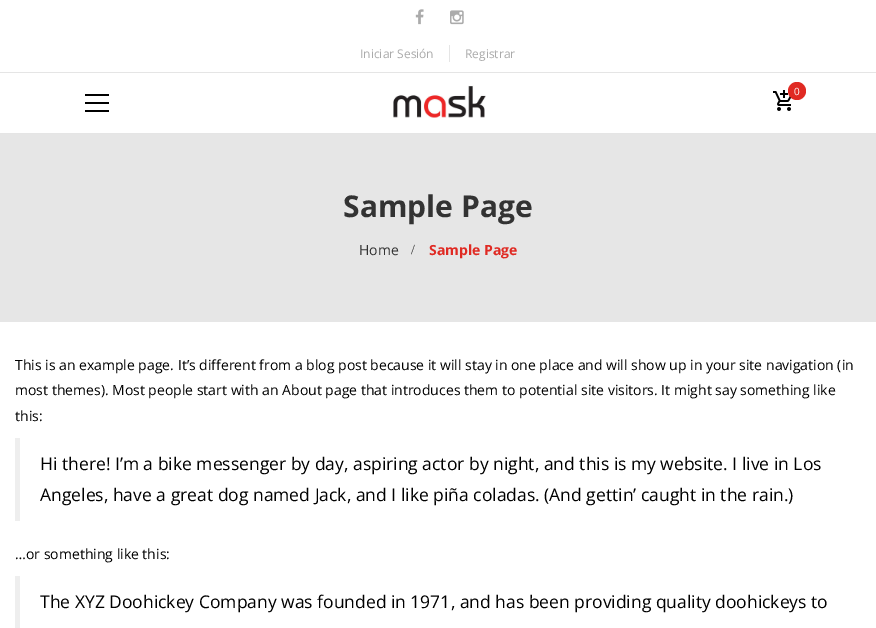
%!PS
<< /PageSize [876 628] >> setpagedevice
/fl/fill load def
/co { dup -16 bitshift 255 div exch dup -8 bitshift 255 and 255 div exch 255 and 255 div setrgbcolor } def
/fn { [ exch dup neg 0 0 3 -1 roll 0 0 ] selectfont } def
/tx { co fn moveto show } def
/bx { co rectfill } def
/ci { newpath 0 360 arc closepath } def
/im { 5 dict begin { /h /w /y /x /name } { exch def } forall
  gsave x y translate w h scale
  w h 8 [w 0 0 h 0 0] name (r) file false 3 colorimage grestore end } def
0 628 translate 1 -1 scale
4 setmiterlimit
0 0 876 628 16#FFFFFF bx
0 72 876 1 16#E5E5E5 bx
(media/1.raw) 415 9 9 16 im
(media/2.raw) 450 10 14 15 im
449 45 1 17 16#E5E5E5 bx
0 133 876 1 16#E5E5E5 bx
(media/3.raw) 393 85 93 33 im
(media/4.raw) 773 90 19 21 im
16#E02A23 co
797 91 9 ci fl
85 94 24 2 16#000000 bx
85 102 24 2 16#000000 bx
85 110 24 2 16#000000 bx
0 134 876 188 16#E6E6E6 bx
15 438 5 83 16#EEEEEE bx
15 576 5 52 16#EEEEEE bx
(Iniciar Sesión) 360 58 /OpenSans-Regular 12 16#ABABAB tx
(Registrar) 465 58 /OpenSans-Regular 12 16#ABABAB tx
(0) 794 95 /OpenSans-Regular 10 16#FFFFFF tx
(Sample Page) 343 217 /OpenSans-Bold 30 16#333333 tx
(Home) 359 255 /OpenSans-Regular 14 16#333333 tx
(/) 411 254 /LiberationSerif-Regular 14 16#333333 tx
(Sample Page) 429 255 /OpenSans-Bold 14 16#E02A23 tx
(This is an example page. It’s different from a blog post because it will stay in one place and will show up in your site navigation \(in) 15 370 /OpenSans-Regular 14 16#000000 tx
(most themes\). Most people start with an About page that introduces them to potential site visitors. It might say something like) 15 395 /OpenSans-Regular 14 16#000000 tx
(this:) 15 421 /OpenSans-Regular 14 16#000000 tx
(Hi there! I’m a bike messenger by day, aspiring actor by night, and this is my website. I live in Los) 40 470 /OpenSans-Regular 17.5 16#000000 tx
(Angeles, have a great dog named Jack, and I like piña coladas. \(And gettin’ caught in the rain.\)) 40 501 /OpenSans-Regular 17.5 16#000000 tx
(…or something like this:) 15 559 /OpenSans-Regular 14 16#000000 tx
(The XYZ Doohickey Company was founded in 1971, and has been providing quality doohickeys to) 40 608 /OpenSans-Regular 17.5 16#000000 tx
showpage
